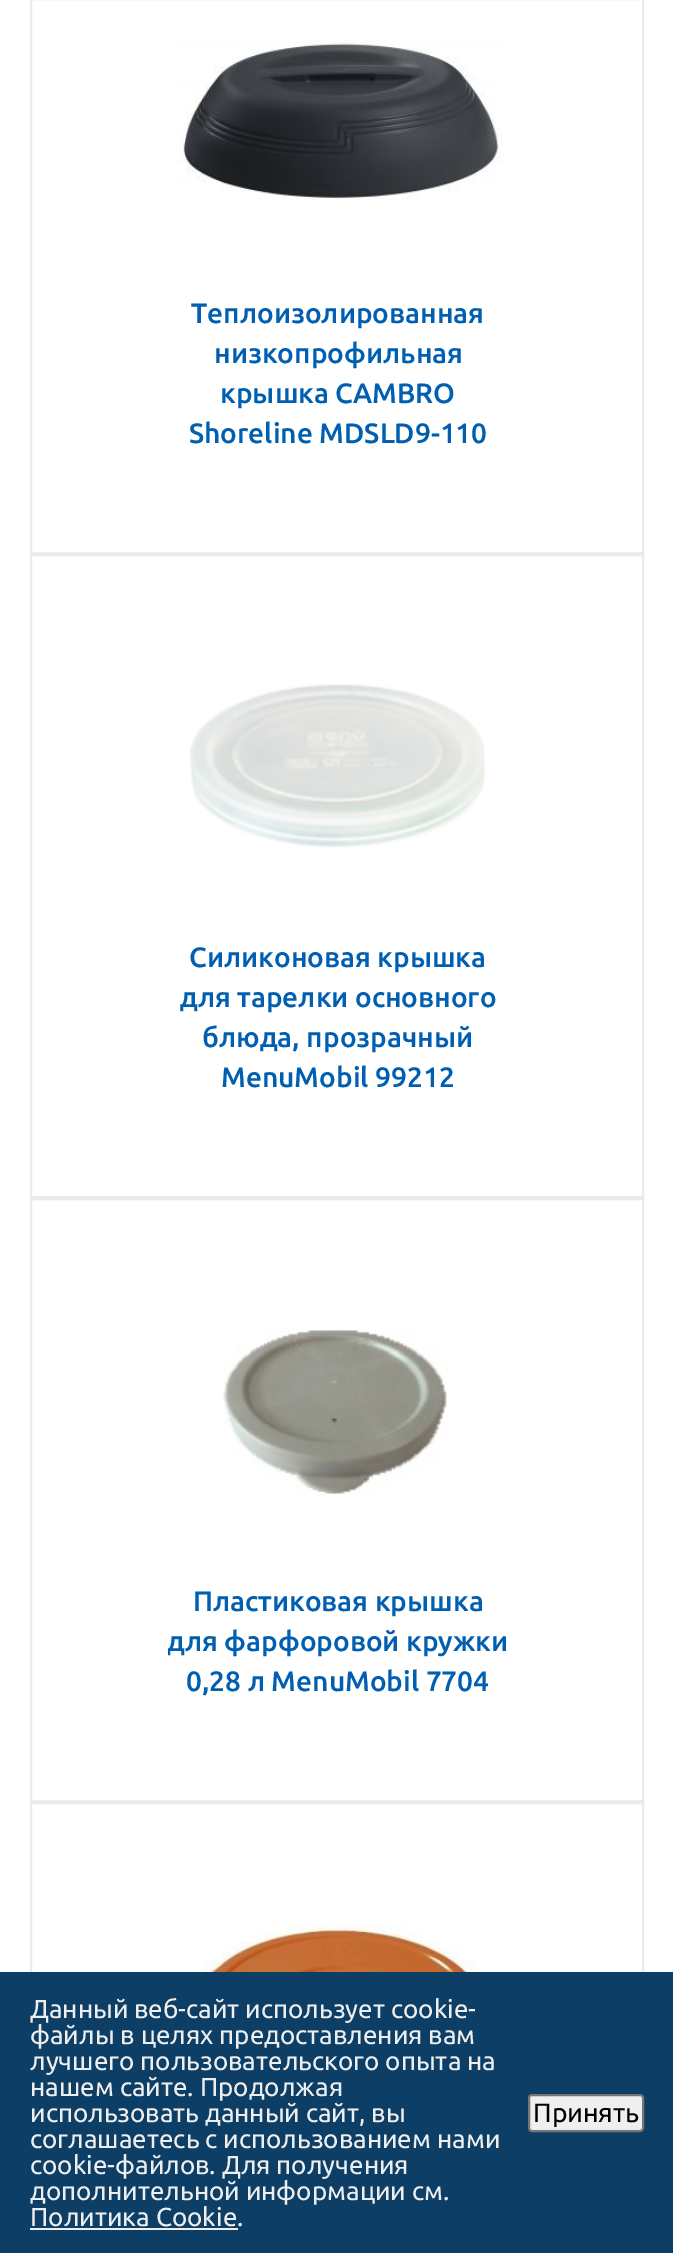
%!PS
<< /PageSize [673 2253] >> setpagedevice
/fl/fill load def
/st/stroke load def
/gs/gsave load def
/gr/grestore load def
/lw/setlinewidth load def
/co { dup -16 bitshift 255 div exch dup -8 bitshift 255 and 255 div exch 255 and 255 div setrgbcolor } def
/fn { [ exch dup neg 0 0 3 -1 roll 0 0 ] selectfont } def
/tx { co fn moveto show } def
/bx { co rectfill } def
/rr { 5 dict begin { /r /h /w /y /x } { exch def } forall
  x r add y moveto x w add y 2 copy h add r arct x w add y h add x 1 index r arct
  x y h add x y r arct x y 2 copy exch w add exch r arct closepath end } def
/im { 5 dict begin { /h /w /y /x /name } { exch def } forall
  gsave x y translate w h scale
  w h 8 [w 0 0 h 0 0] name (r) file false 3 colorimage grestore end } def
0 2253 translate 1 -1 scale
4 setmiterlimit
0 0 673 2253 16#FFFFFF bx
16#EAEBEC co
2 lw
31 -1 612 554 rectstroke
(media/1.raw) 177 38 325 162 im
31 555 612 642 rectstroke
(media/2.raw) 190 684 295 165 im
31 1199 612 602 rectstroke
(media/3.raw) 222 1329 226 168 im
31 1803 612 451 rectstroke
(media/4.raw) 185 1924 311 48 im
0 1972 673 281 16#0D3E66 bx
30 2228 208 2 16#EEEEEE bx
16#EFEFEF co
529 2095 114 36 3 rr gs fl gr
16#767676 co
st
(Теплоизолированная) 191 323 /Ubuntu-Medium 28 16#005FB1 tx
(низкопрофильная) 214 363 /Ubuntu-Medium 28 16#005FB1 tx
(крышка CAMBRO) 220 403 /Ubuntu-Medium 28 16#005FB1 tx
(Shoreline MDSLD9-110) 189 443 /Ubuntu-Medium 28 16#005FB1 tx
(Силиконовая крышка) 189 967 /Ubuntu-Medium 28 16#005FB1 tx
(для тарелки основного) 180 1007 /Ubuntu-Medium 28 16#005FB1 tx
(блюда, прозрачный) 202 1047 /Ubuntu-Medium 28 16#005FB1 tx
(MenuMobil 99212) 221 1087 /Ubuntu-Medium 28 16#005FB1 tx
(Пластиковая крышка) 193 1611 /Ubuntu-Medium 28 16#005FB1 tx
gs
168 1580 342 120 rectclip
(для фарфоровой кружки) 167 1651 /Ubuntu-Medium 28 16#005FB1 tx
gr
(0,28 л MenuMobil 7704) 186 1691 /Ubuntu-Medium 28 16#005FB1 tx
(Данный веб-сайт использует cookie-) 30 2018 /Ubuntu-Regular 26 16#EEEEEE tx
(файлы в целях предоставления вам) 30 2044 /Ubuntu-Regular 26 16#EEEEEE tx
(лучшего пользовательского опыта на) 30 2070 /Ubuntu-Regular 26 16#EEEEEE tx
(нашем сайте. Продолжая) 30 2096 /Ubuntu-Regular 26 16#EEEEEE tx
(использовать данный сайт, вы) 30 2122 /Ubuntu-Regular 26 16#EEEEEE tx
(соглашаетесь с использованием нами) 30 2148 /Ubuntu-Regular 26 16#EEEEEE tx
(cookie-файлов. Для получения) 30 2174 /Ubuntu-Regular 26 16#EEEEEE tx
(дополнительной информации см.) 30 2200 /Ubuntu-Regular 26 16#EEEEEE tx
(Политика Cookie.) 30 2226 /Ubuntu-Regular 26 16#EEEEEE tx
(Принять) 533 2122 /Ubuntu-Regular 26.5 16#000000 tx
showpage
